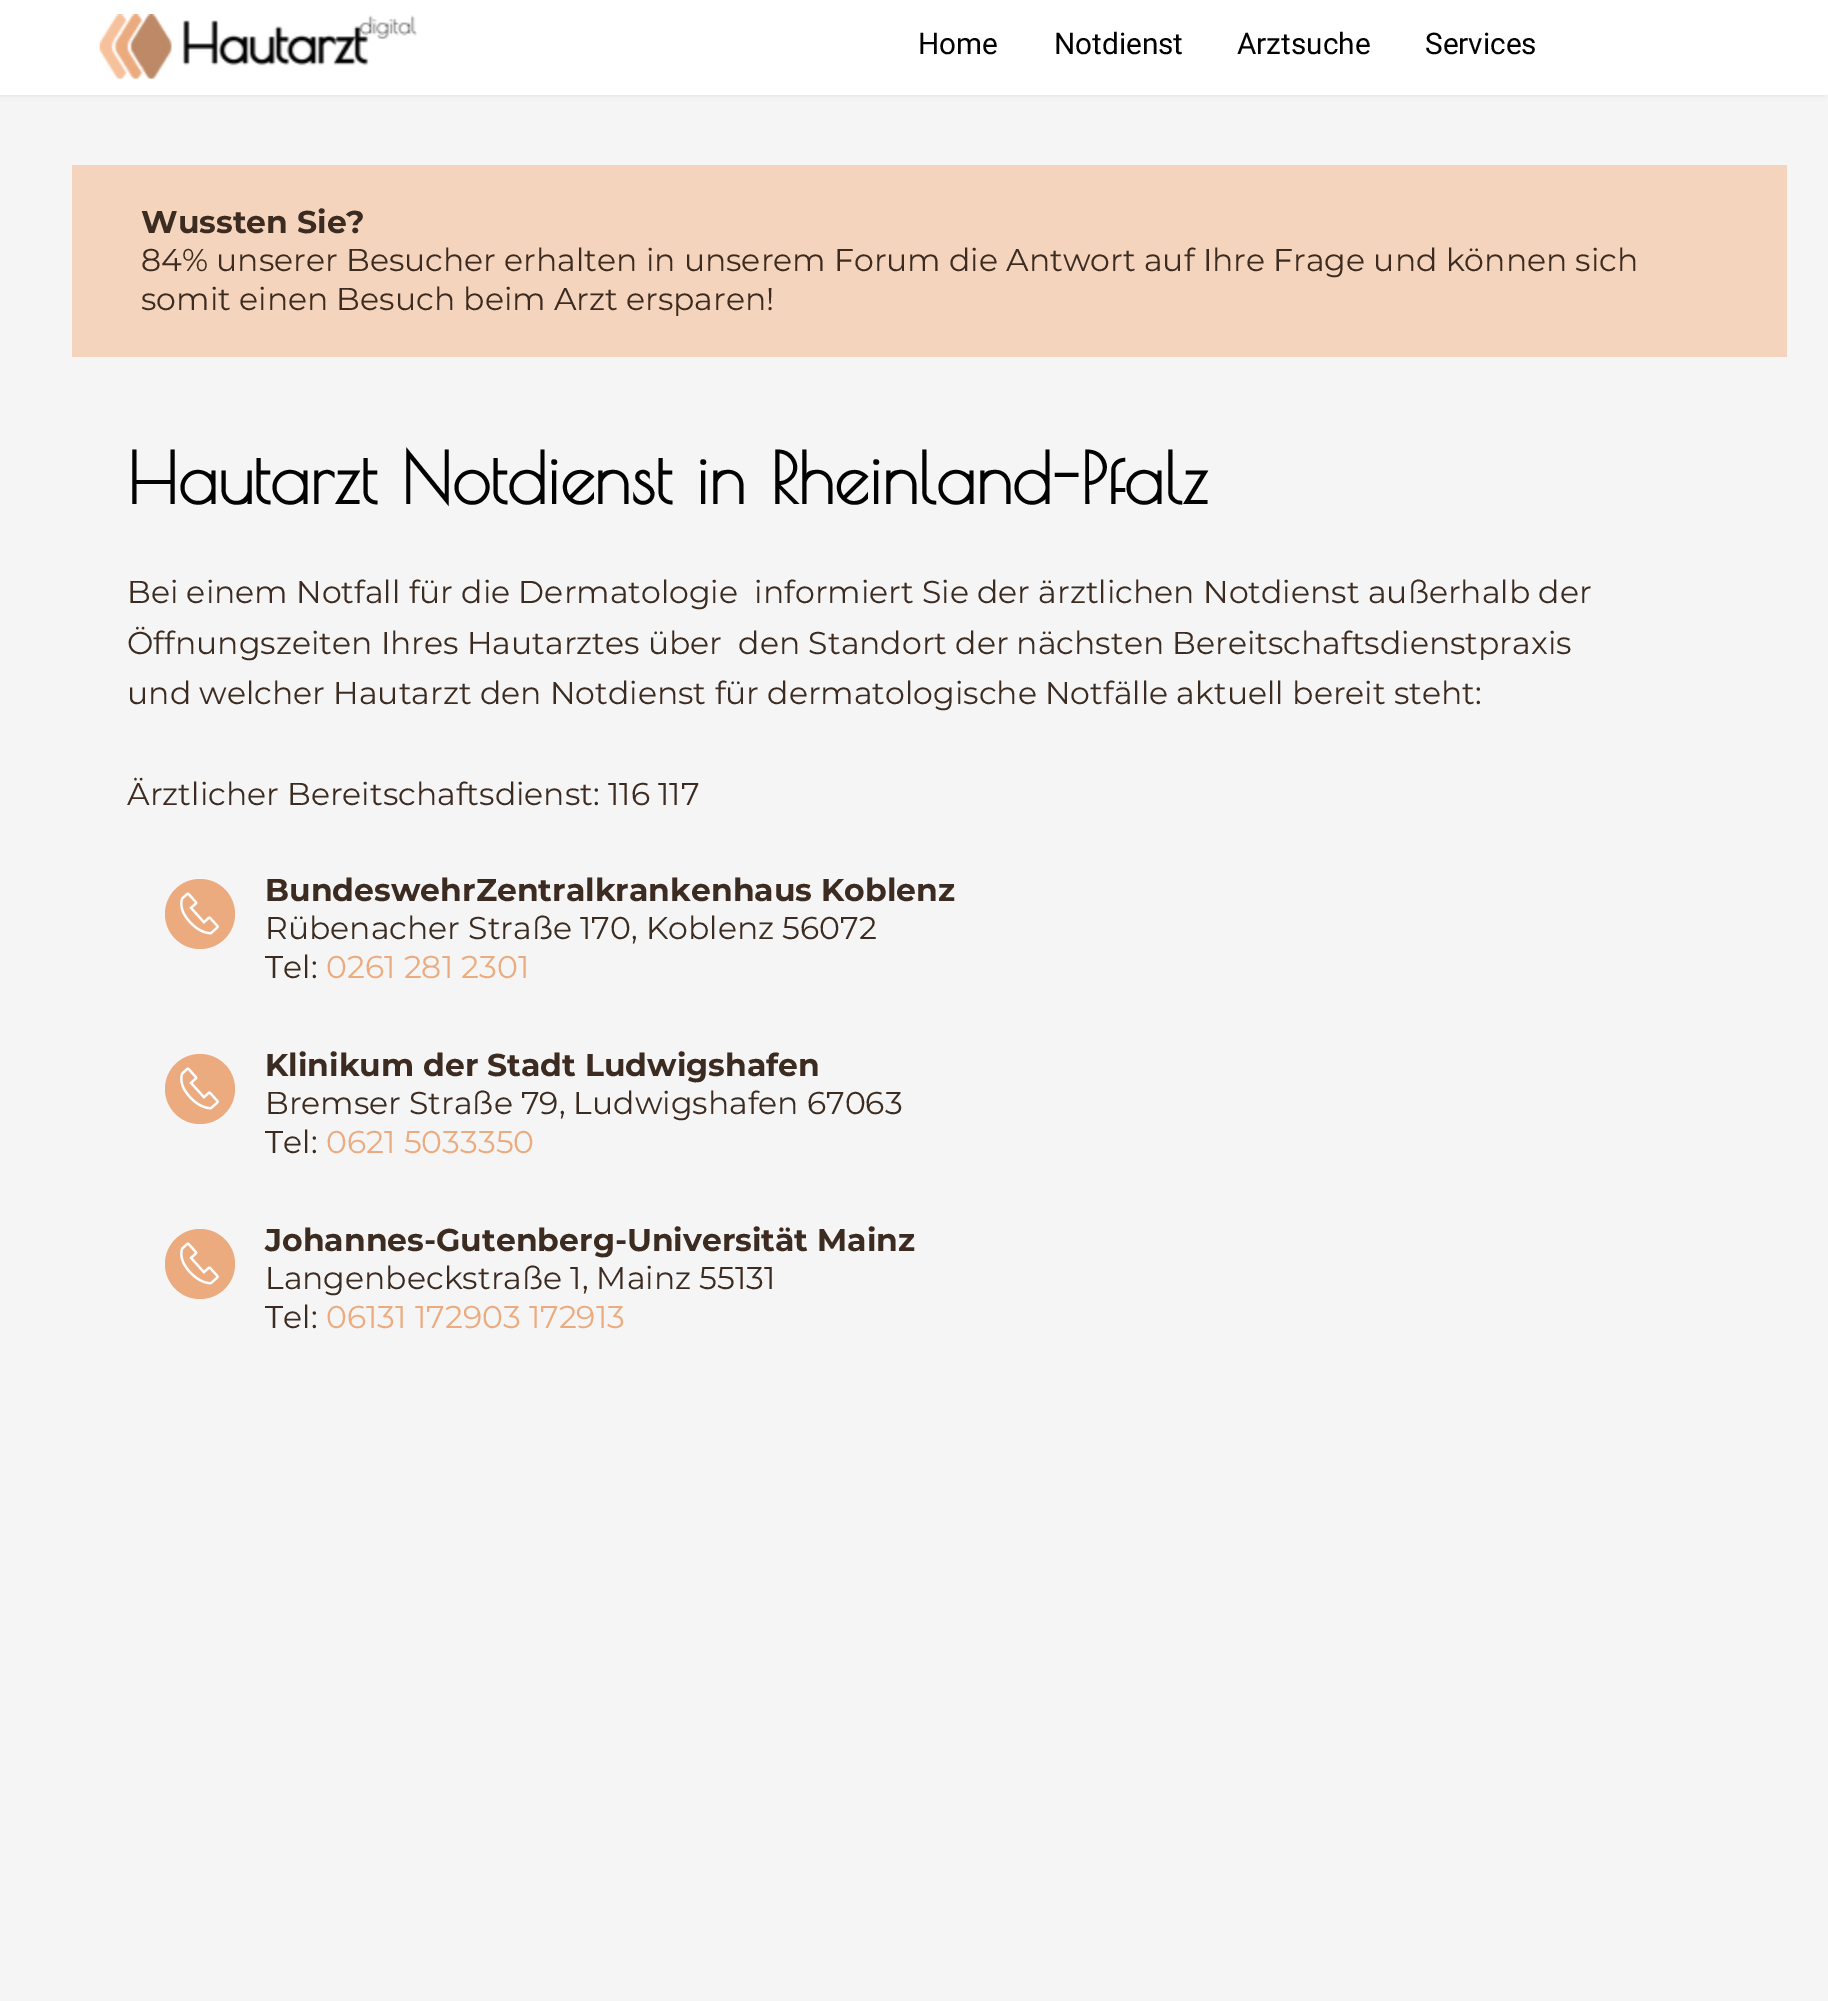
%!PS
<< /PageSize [1828 2001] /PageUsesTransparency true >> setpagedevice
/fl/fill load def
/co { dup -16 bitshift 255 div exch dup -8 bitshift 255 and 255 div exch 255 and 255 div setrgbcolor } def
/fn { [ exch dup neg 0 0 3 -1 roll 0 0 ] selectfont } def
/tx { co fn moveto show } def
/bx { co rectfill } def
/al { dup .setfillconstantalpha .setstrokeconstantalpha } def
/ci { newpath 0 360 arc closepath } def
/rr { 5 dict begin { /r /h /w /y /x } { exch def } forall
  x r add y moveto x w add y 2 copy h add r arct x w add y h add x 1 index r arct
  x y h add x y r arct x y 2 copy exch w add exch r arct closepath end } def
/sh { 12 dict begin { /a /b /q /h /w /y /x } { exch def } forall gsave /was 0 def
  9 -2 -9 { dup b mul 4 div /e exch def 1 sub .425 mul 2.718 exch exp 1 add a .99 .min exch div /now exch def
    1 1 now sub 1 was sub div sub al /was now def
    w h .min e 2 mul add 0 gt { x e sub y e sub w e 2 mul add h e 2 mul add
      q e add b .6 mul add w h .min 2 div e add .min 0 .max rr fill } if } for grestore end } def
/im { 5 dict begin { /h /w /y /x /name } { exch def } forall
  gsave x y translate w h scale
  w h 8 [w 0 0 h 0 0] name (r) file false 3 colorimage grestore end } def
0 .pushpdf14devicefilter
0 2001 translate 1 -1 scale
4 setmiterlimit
0 0 1828 2001 16#F5F5F5 bx
16#000000 co
-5 0 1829 95 0 2.5 .1 sh
0 0 1828 95 16#FFFFFF bx
(media/1.raw) 99 14 73 65 im
(media/2.raw) 182 15 235 51 im
72 165 1715 192 16#F5D4BD bx
16#EBAB7F co
200 914 35 ci fl
(media/3.raw) 180 892 39 43 im
200 1089 35 ci fl
(media/3.raw) 180 1067 39 43 im
200 1264 35 ci fl
(media/3.raw) 180 1242 39 43 im
(Home) 918 54 /Roboto-Regular 29.75 16#020203 tx
(Notdienst) 1054 54 /Roboto-Regular 29.75 16#020203 tx
(Arztsuche) 1237 54 /Roboto-Regular 29.75 16#020203 tx
(Services) 1425 54 /Roboto-Regular 29.75 16#020203 tx
(Wussten Sie?) 141 233 /Montserrat-Bold 31.5 16#3B2B20 tx
(84% unserer Besucher erhalten in unserem Forum die Antwort auf Ihre Frage und können sich) 141 271 /Montserrat-Regular 31.5 16#3B2B20 tx
(somit einen Besuch beim Arzt ersparen!) 141 310 /Montserrat-Regular 31.5 16#3B2B20 tx
(Hautarzt Notdienst in Rheinland-Pfalz) 127 504 /PoiretOne-Bold 70 16#020203 tx
(Bei einem Notfall für die Dermatologie  informiert Sie der ärztlichen Notdienst außerhalb der) 127 603 /Montserrat-Regular 31.5 16#3B2B20 tx
(Öffnungszeiten Ihres Hautarztes über  den Standort der nächsten Bereitschaftsdienstpraxis) 127 654 /Montserrat-Regular 31.5 16#3B2B20 tx
(und welcher Hautarzt den Notdienst für dermatologische Notfälle aktuell bereit steht:) 127 704 /Montserrat-Regular 31.5 16#3B2B20 tx
(Ärztlicher Bereitschaftsdienst: 116 117) 127 805 /Montserrat-Regular 31.5 16#3B2B20 tx
(BundeswehrZentralkrankenhaus Koblenz) 265 901 /Montserrat-Bold 31.5 16#3B2B20 tx
(Rübenacher Straße 170, Koblenz 56072) 265 939 /Montserrat-Regular 31.5 16#3B2B20 tx
(Tel:) 265 978 /Montserrat-Regular 31.5 16#3B2B20 tx
(0261 281 2301) 326 978 /Montserrat-Regular 31.5 16#EBAB7F tx
(Klinikum der Stadt Ludwigshafen) 265 1076 /Montserrat-Bold 31.5 16#3B2B20 tx
(Bremser Straße 79, Ludwigshafen 67063) 265 1114 /Montserrat-Regular 31.5 16#3B2B20 tx
(Tel:) 265 1153 /Montserrat-Regular 31.5 16#3B2B20 tx
(0621 5033350) 326 1153 /Montserrat-Regular 31.5 16#EBAB7F tx
(Johannes-Gutenberg-Universität Mainz) 265 1251 /Montserrat-Bold 31.5 16#3B2B20 tx
(Langenbeckstraße 1, Mainz 55131) 265 1289 /Montserrat-Regular 31.5 16#3B2B20 tx
(Tel:) 265 1328 /Montserrat-Regular 31.5 16#3B2B20 tx
(06131 172903 172913) 326 1328 /Montserrat-Regular 31.5 16#EBAB7F tx
.poppdf14devicefilter showpage
